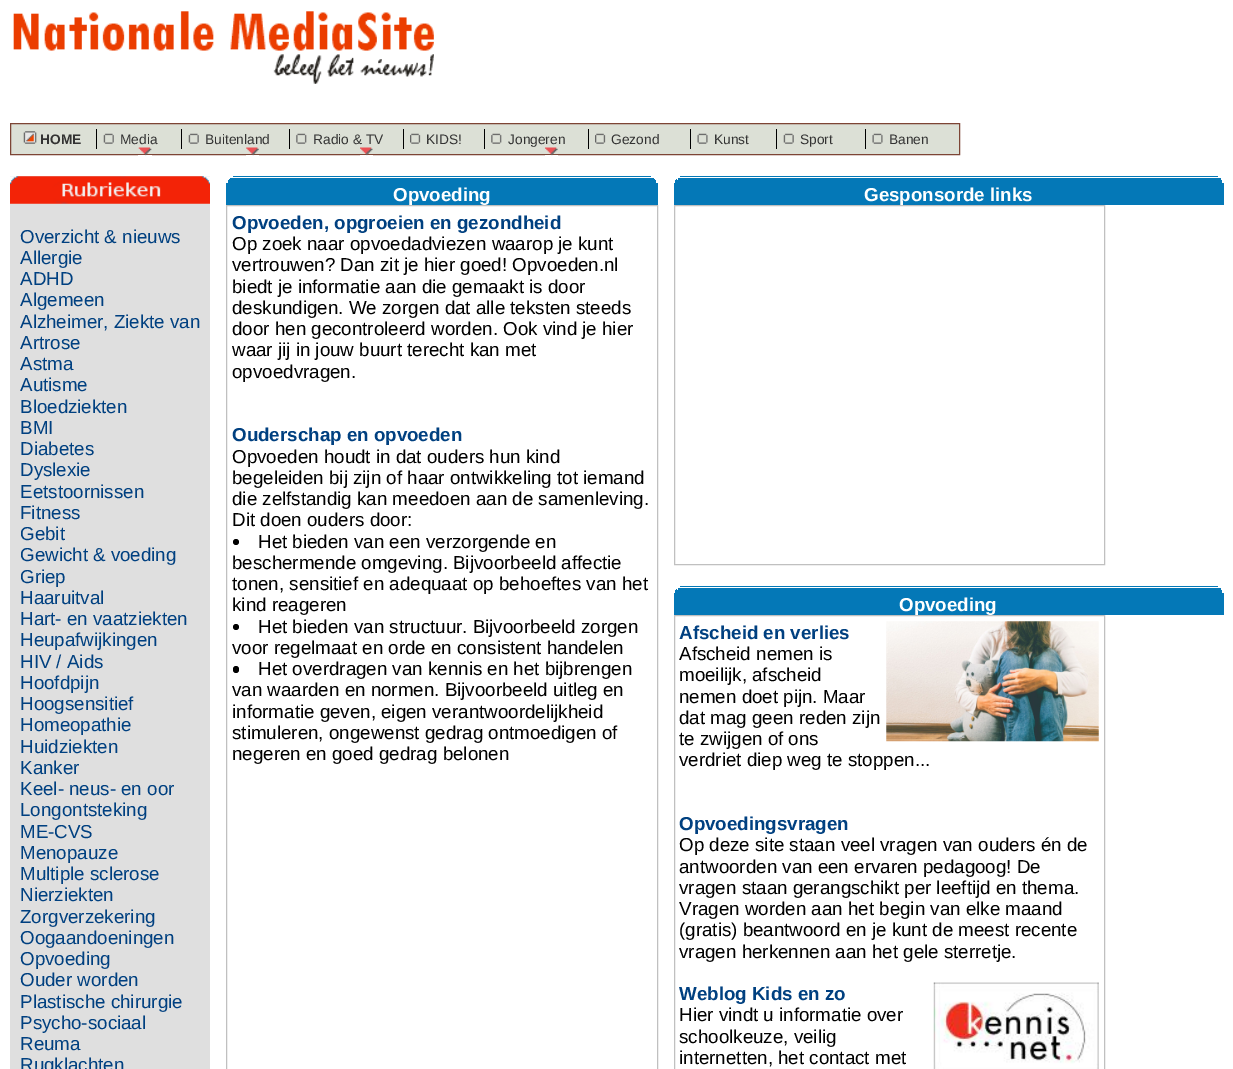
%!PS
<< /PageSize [1233 1069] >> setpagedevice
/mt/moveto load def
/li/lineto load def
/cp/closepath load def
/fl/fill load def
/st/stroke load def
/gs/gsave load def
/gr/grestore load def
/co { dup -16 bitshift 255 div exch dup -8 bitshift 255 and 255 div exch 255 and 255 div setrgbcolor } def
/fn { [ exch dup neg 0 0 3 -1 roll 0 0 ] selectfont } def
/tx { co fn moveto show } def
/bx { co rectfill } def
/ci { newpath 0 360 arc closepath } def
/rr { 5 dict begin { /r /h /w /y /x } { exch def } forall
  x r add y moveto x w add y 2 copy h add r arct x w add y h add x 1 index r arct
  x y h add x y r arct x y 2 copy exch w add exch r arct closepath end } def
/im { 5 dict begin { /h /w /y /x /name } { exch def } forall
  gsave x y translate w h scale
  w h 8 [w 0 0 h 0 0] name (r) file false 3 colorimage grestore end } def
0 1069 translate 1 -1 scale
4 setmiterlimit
0 0 1233 1069 16#FFFFFF bx
(media/1.raw) 13 11 421 73 im
16#DCE0D6 co
10.5 123.5 mt 959.5 123.5 li 959.5 154.5 li 10.5 154.5 li cp gs fl gr
16#7D4535 co
st
(media/2.raw) 23 131 14 13 im
96 129 1 20 16#000000 bx
(media/3.raw) 103 133 11 11 im
(media/4.raw) 138 147 14 9 im
181 129 1 20 16#000000 bx
(media/5.raw) 188 133 11 11 im
(media/6.raw) 246 147 13 9 im
289 129 1 20 16#000000 bx
(media/7.raw) 296 133 11 11 im
(media/8.raw) 360 147 13 9 im
403 129 1 20 16#000000 bx
(media/9.raw) 410 133 11 11 im
484 129 1 20 16#000000 bx
(media/7.raw) 491 133 11 11 im
(media/10.raw) 545 147 13 9 im
588 129 1 20 16#000000 bx
(media/9.raw) 595 133 11 11 im
690 129 1 20 16#000000 bx
(media/11.raw) 697 133 11 11 im
776 129 1 20 16#000000 bx
(media/5.raw) 783 133 11 11 im
865 129 1 20 16#000000 bx
(media/11.raw) 872 133 11 11 im
10 176 200 893 16#DFDFDF bx
(media/12.raw) 10 176 200 28 im
233 176 418 1 16#0478B7 bx
230 178 424 2 16#0478B7 bx
654 179 1 1 16#0478B7 bx
229 179 1 1 16#0478B7 bx
228 180 428 3 16#0478B7 bx
226 183 432 22 16#0478B7 bx
16#C0C0C0 co
226.5 205.5 431 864 rectstroke
16#000000 co
236 542 3 ci fl
236 627 3 ci fl
233 666 6 7 3 rr fl
680 176 538 1 16#0478B7 bx
678 178 543 1 16#0478B7 bx
678 179 543 1 16#0478B7 bx
676 179 1 1 16#0478B7 bx
675 180 547 3 16#0478B7 bx
674 183 550 22 16#0478B7 bx
16#C0C0C0 co
674.5 205.5 430 359 rectstroke
680 586 538 1 16#0478B7 bx
678 588 543 1 16#0478B7 bx
678 589 543 1 16#0478B7 bx
676 589 1 1 16#0478B7 bx
675 590 547 3 16#0478B7 bx
674 593 550 22 16#0478B7 bx
16#C0C0C0 co
674.5 615.5 430 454 rectstroke
(media/13.raw) 886 621 213 121 im
(media/14.raw) 933 982 166 87 im
(HOME) 40 144 /LiberationSans-Bold 13.75 16#333333 tx
(Media) 120 144 /LiberationSans-Regular 13.75 16#333333 tx
(Buitenland) 205 144 /LiberationSans-Regular 13.75 16#333333 tx
(Radio & TV) 313 144 /LiberationSans-Regular 13.75 16#333333 tx
(KIDS!) 426 144 /LiberationSans-Regular 13.75 16#333333 tx
(Jongeren) 508 144 /LiberationSans-Regular 13.75 16#333333 tx
(Gezond) 611 144 /LiberationSans-Regular 13.75 16#333333 tx
(Kunst) 714 144 /LiberationSans-Regular 13.75 16#333333 tx
(Sport) 800 144 /LiberationSans-Regular 13.75 16#333333 tx
(Banen) 889 144 /LiberationSans-Regular 13.75 16#333333 tx
(Overzicht & nieuws) 20 243 /LiberationSans-Regular 18.75 16#004080 tx
(Allergie) 20 264 /LiberationSans-Regular 18.75 16#004080 tx
(ADHD) 20 285 /LiberationSans-Regular 18.75 16#004080 tx
(Algemeen) 20 306 /LiberationSans-Regular 18.75 16#004080 tx
(Alzheimer, Ziekte van) 20 328 /LiberationSans-Regular 18.75 16#004080 tx
(Artrose) 20 349 /LiberationSans-Regular 18.75 16#004080 tx
(Astma) 20 370 /LiberationSans-Regular 18.75 16#004080 tx
(Autisme) 20 391 /LiberationSans-Regular 18.75 16#004080 tx
(Bloedziekten) 20 413 /LiberationSans-Regular 18.75 16#004080 tx
(BMI) 20 434 /LiberationSans-Regular 18.75 16#004080 tx
(Diabetes) 20 455 /LiberationSans-Regular 18.75 16#004080 tx
(Dyslexie) 20 476 /LiberationSans-Regular 18.75 16#004080 tx
(Eetstoornissen) 20 498 /LiberationSans-Regular 18.75 16#004080 tx
(Fitness) 20 519 /LiberationSans-Regular 18.75 16#004080 tx
(Gebit) 20 540 /LiberationSans-Regular 18.75 16#004080 tx
(Gewicht & voeding) 20 561 /LiberationSans-Regular 18.75 16#004080 tx
(Griep) 20 583 /LiberationSans-Regular 18.75 16#004080 tx
(Haaruitval) 20 604 /LiberationSans-Regular 18.75 16#004080 tx
(Hart- en vaatziekten) 20 625 /LiberationSans-Regular 18.75 16#004080 tx
(Heupafwijkingen) 20 646 /LiberationSans-Regular 18.75 16#004080 tx
(HIV / Aids) 20 668 /LiberationSans-Regular 18.75 16#004080 tx
(Hoofdpijn) 20 689 /LiberationSans-Regular 18.75 16#004080 tx
(Hoogsensitief) 20 710 /LiberationSans-Regular 18.75 16#004080 tx
(Homeopathie) 20 731 /LiberationSans-Regular 18.75 16#004080 tx
(Huidziekten) 20 753 /LiberationSans-Regular 18.75 16#004080 tx
(Kanker) 20 774 /LiberationSans-Regular 18.75 16#004080 tx
(Keel- neus- en oor) 20 795 /LiberationSans-Regular 18.75 16#004080 tx
(Longontsteking) 20 816 /LiberationSans-Regular 18.75 16#004080 tx
(ME-CVS) 20 838 /LiberationSans-Regular 18.75 16#004080 tx
(Menopauze) 20 859 /LiberationSans-Regular 18.75 16#004080 tx
(Multiple sclerose) 20 880 /LiberationSans-Regular 18.75 16#004080 tx
(Nierziekten) 20 901 /LiberationSans-Regular 18.75 16#004080 tx
(Zorgverzekering) 20 923 /LiberationSans-Regular 18.75 16#004080 tx
(Oogaandoeningen) 20 944 /LiberationSans-Regular 18.75 16#004080 tx
(Opvoeding) 20 965 /LiberationSans-Regular 18.75 16#004080 tx
(Ouder worden) 20 986 /LiberationSans-Regular 18.75 16#004080 tx
(Plastische chirurgie) 20 1008 /LiberationSans-Regular 18.75 16#004080 tx
(Psycho-sociaal) 20 1029 /LiberationSans-Regular 18.75 16#004080 tx
(Reuma) 20 1050 /LiberationSans-Regular 18.75 16#004080 tx
(Rugklachten) 20 1071 /LiberationSans-Regular 18.75 16#004080 tx
(Opvoeding) 393 201 /LiberationSans-Bold 18.75 16#FFFFFF tx
(Opvoeden, opgroeien en gezondheid) 232 229 /LiberationSans-Bold 18.75 16#004080 tx
(Op zoek naar opvoedadviezen waarop je kunt) 232 250 /LiberationSans-Regular 18.75 16#000000 tx
(vertrouwen? Dan zit je hier goed! Opvoeden.nl) 232 271 /LiberationSans-Regular 18.75 16#000000 tx
(biedt je informatie aan die gemaakt is door) 232 293 /LiberationSans-Regular 18.75 16#000000 tx
(deskundigen. We zorgen dat alle teksten steeds) 232 314 /LiberationSans-Regular 18.75 16#000000 tx
(door hen gecontroleerd worden. Ook vind je hier) 232 335 /LiberationSans-Regular 18.75 16#000000 tx
(waar jij in jouw buurt terecht kan met) 232 356 /LiberationSans-Regular 18.75 16#000000 tx
(opvoedvragen.) 232 378 /LiberationSans-Regular 18.75 16#000000 tx
(Ouderschap en opvoeden) 232 441 /LiberationSans-Bold 18.75 16#004080 tx
(Opvoeden houdt in dat ouders hun kind) 232 463 /LiberationSans-Regular 18.75 16#000000 tx
(begeleiden bij zijn of haar ontwikkeling tot iemand) 232 484 /LiberationSans-Regular 18.75 16#000000 tx
(die zelfstandig kan meedoen aan de samenleving.) 232 505 /LiberationSans-Regular 18.75 16#000000 tx
(Dit doen ouders door:) 232 526 /LiberationSans-Regular 18.75 16#000000 tx
(Het bieden van een verzorgende en) 258 548 /LiberationSans-Regular 18.75 16#000000 tx
(beschermende omgeving. Bijvoorbeeld affectie) 232 569 /LiberationSans-Regular 18.75 16#000000 tx
(tonen, sensitief en adequaat op behoeftes van het) 232 590 /LiberationSans-Regular 18.75 16#000000 tx
(kind reageren) 232 611 /LiberationSans-Regular 18.75 16#000000 tx
(Het bieden van structuur. Bijvoorbeeld zorgen) 258 633 /LiberationSans-Regular 18.75 16#000000 tx
(voor regelmaat en orde en consistent handelen) 232 654 /LiberationSans-Regular 18.75 16#000000 tx
(Het overdragen van kennis en het bijbrengen) 258 675 /LiberationSans-Regular 18.75 16#000000 tx
(van waarden en normen. Bijvoorbeeld uitleg en) 232 696 /LiberationSans-Regular 18.75 16#000000 tx
(informatie geven, eigen verantwoordelijkheid) 232 718 /LiberationSans-Regular 18.75 16#000000 tx
(stimuleren, ongewenst gedrag ontmoedigen of) 232 739 /LiberationSans-Regular 18.75 16#000000 tx
(negeren en goed gedrag belonen) 232 760 /LiberationSans-Regular 18.75 16#000000 tx
(Gesponsorde links) 864 201 /LiberationSans-Bold 18.75 16#FFFFFF tx
(Opvoeding) 899 611 /LiberationSans-Bold 18.75 16#FFFFFF tx
(Afscheid en verlies) 679 639 /LiberationSans-Bold 18.75 16#004080 tx
(Afscheid nemen is) 679 660 /LiberationSans-Regular 18.75 16#000000 tx
(moeilijk, afscheid) 679 681 /LiberationSans-Regular 18.75 16#000000 tx
(nemen doet pijn. Maar) 679 703 /LiberationSans-Regular 18.75 16#000000 tx
(dat mag geen reden zijn) 679 724 /LiberationSans-Regular 18.75 16#000000 tx
(te zwijgen of ons) 679 745 /LiberationSans-Regular 18.75 16#000000 tx
(verdriet diep weg te stoppen...) 679 766 /LiberationSans-Regular 18.75 16#000000 tx
(Opvoedingsvragen) 679 830 /LiberationSans-Bold 18.75 16#004080 tx
(Op deze site staan veel vragen van ouders én de) 679 851 /LiberationSans-Regular 18.75 16#000000 tx
(antwoorden van een ervaren pedagoog! De) 679 873 /LiberationSans-Regular 18.75 16#000000 tx
(vragen staan gerangschikt per leeftijd en thema.) 679 894 /LiberationSans-Regular 18.75 16#000000 tx
(Vragen worden aan het begin van elke maand) 679 915 /LiberationSans-Regular 18.75 16#000000 tx
(\(gratis\) beantwoord en je kunt de meest recente) 679 936 /LiberationSans-Regular 18.75 16#000000 tx
(vragen herkennen aan het gele sterretje.) 679 958 /LiberationSans-Regular 18.75 16#000000 tx
(Weblog Kids en zo) 679 1000 /LiberationSans-Bold 18.75 16#004080 tx
(Hier vindt u informatie over) 679 1021 /LiberationSans-Regular 18.75 16#000000 tx
(schoolkeuze, veilig) 679 1043 /LiberationSans-Regular 18.75 16#000000 tx
(internetten, het contact met) 679 1064 /LiberationSans-Regular 18.75 16#000000 tx
showpage
